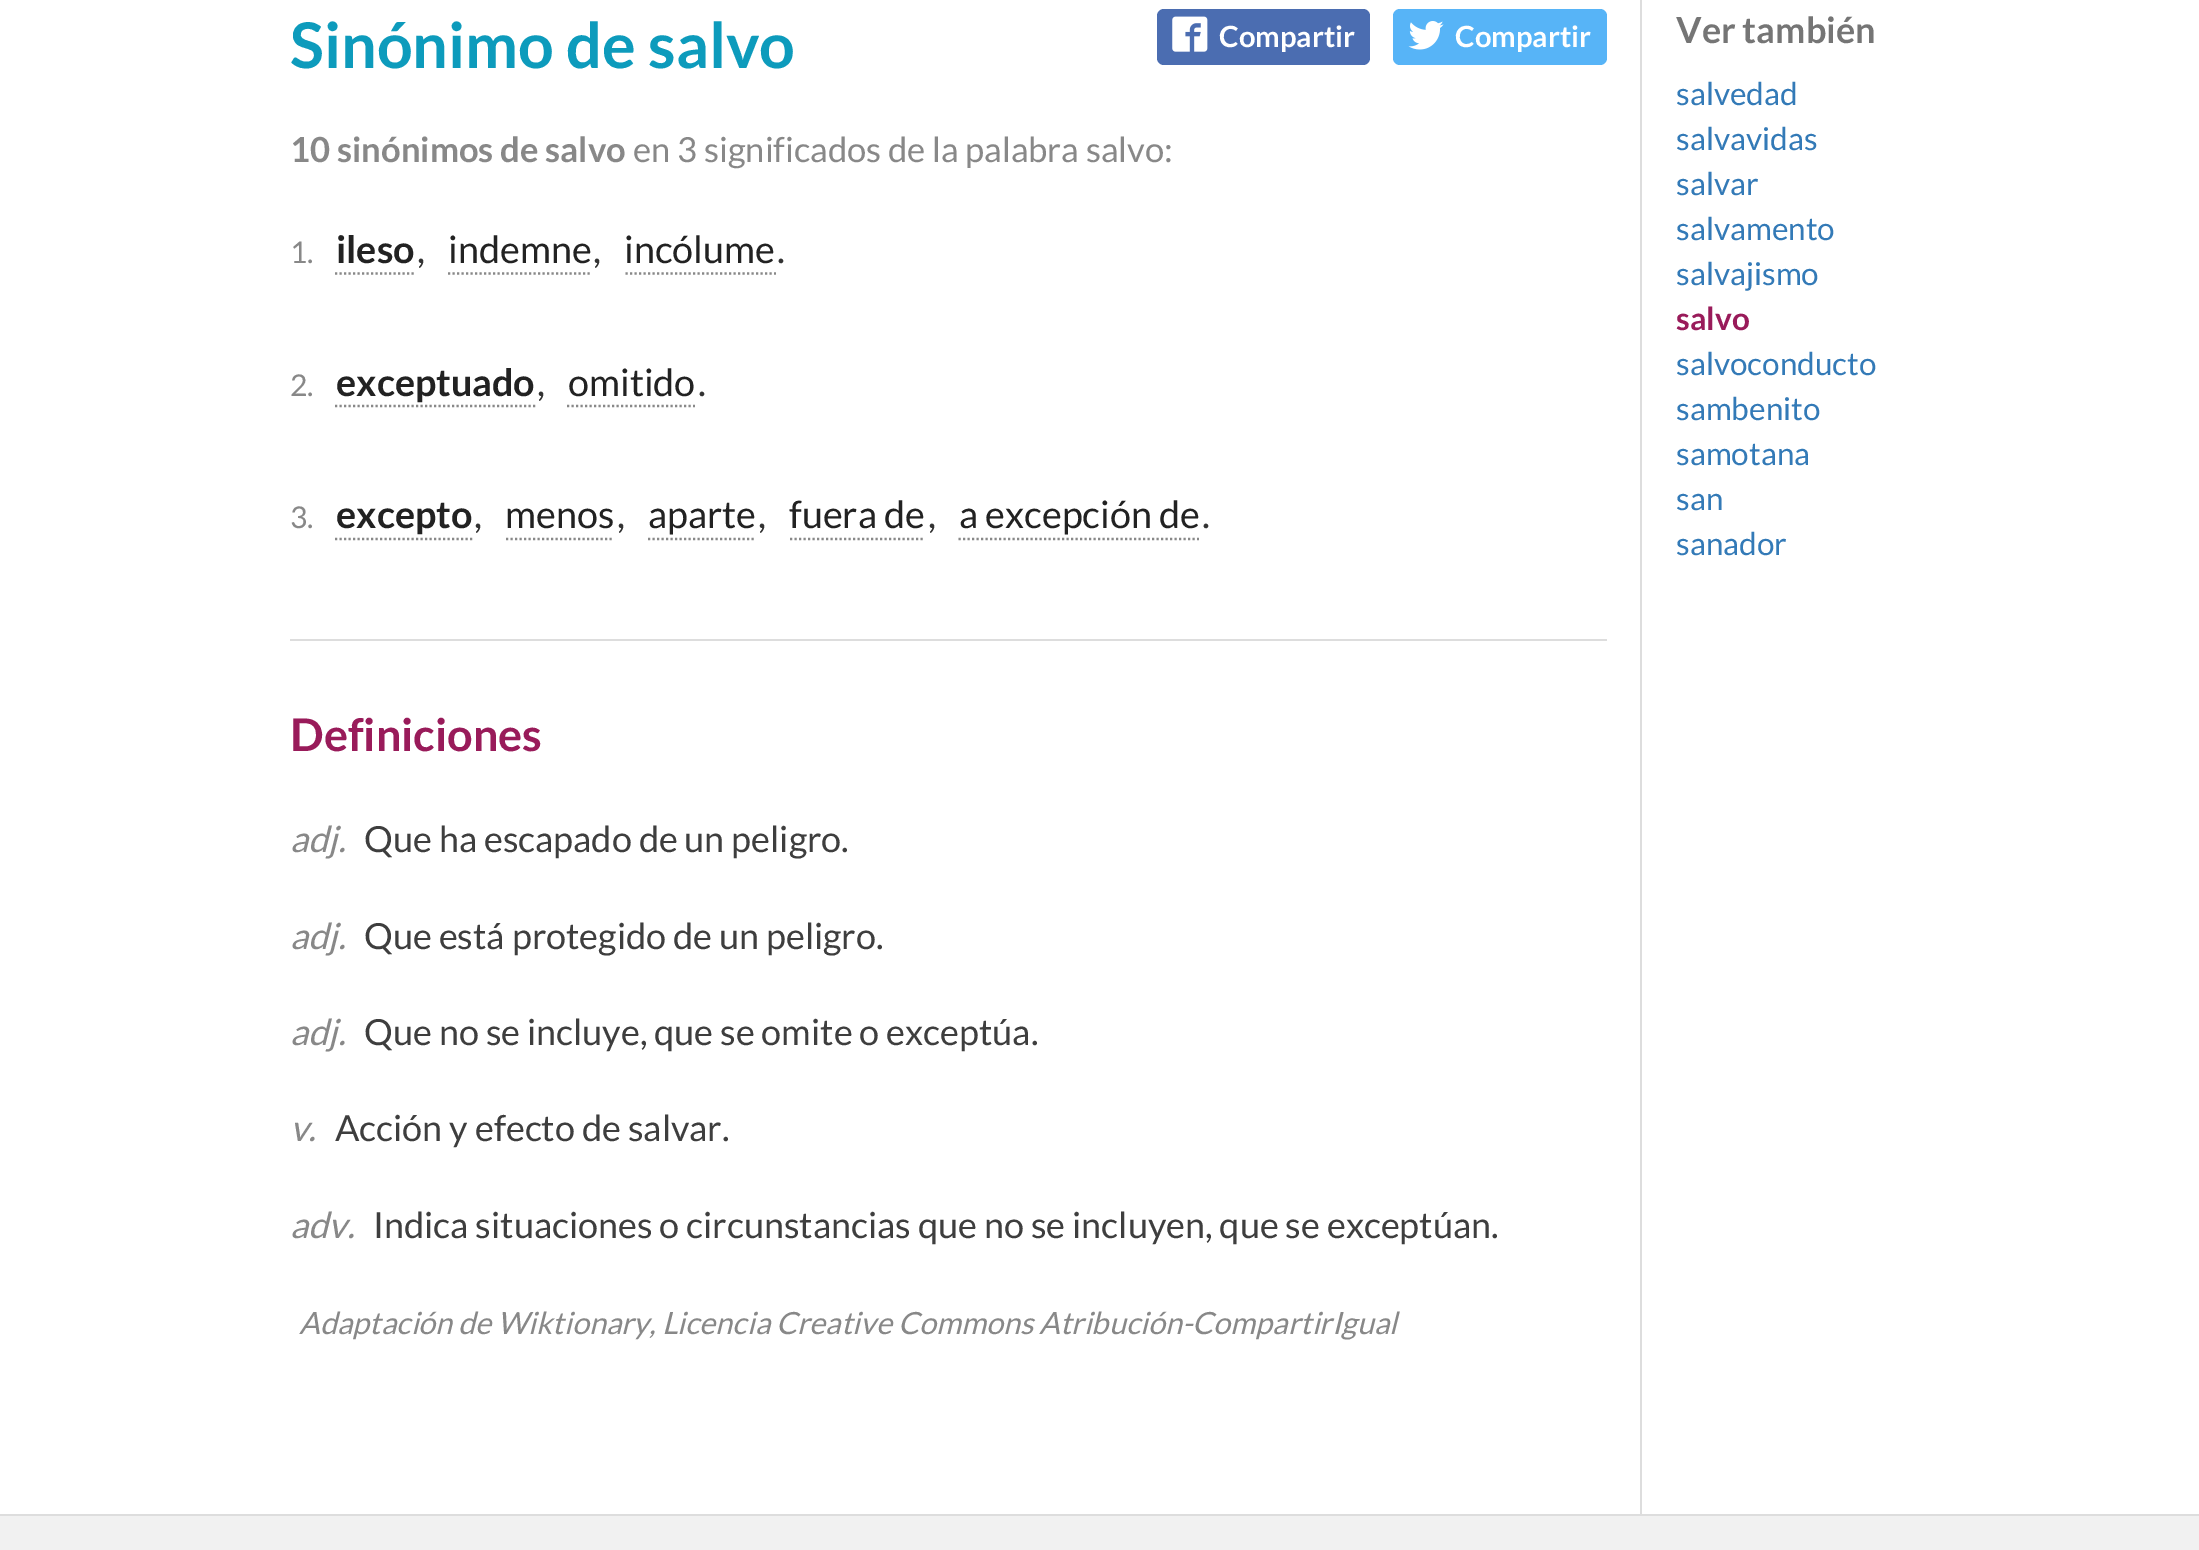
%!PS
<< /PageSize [2199 1550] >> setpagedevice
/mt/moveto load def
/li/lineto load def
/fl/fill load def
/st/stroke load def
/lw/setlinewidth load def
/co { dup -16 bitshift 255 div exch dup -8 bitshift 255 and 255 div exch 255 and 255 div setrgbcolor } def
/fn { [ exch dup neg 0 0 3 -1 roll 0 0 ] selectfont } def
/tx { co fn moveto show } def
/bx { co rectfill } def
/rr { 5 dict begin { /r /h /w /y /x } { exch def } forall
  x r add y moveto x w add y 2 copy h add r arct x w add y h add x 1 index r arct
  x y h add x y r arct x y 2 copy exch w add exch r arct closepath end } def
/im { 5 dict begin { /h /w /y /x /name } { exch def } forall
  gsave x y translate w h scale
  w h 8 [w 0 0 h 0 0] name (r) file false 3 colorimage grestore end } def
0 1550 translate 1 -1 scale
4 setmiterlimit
0 0 2199 1550 16#FFFFFF bx
16#4B6DB1 co
1157 9 213 56 7 rr fl
(media/1.raw) 1172 16 36 36 im
16#57B4F7 co
1393 9 214 56 7 rr fl
(media/2.raw) 1408 21 36 29 im
16#888888 co
2.2 lw
[2.25 2.25] 0 setdash
335 273.5 mt 414 273.5 li st
448 273.5 mt 592 273.5 li st
625.5 273.5 mt 776 273.5 li st
335 406 mt 535.5 406 li st
567 406 mt 695 406 li st
335 539 mt 472.5 539 li st
506 539 mt 614 539 li st
648 539 mt 756 539 li st
790 539 mt 925 539 li st
958.5 539 mt 1199 539 li st
290 639 1317 2 16#DDDDDD bx
1640 0 2 1514 16#DDDDDD bx
0 1516 2199 34 16#F1F1F1 bx
0 1514 2199 2 16#DDDDDD bx
(Sinónimo de salvo) 290 68 /Lato-Bold 63 16#0D9BBC tx
(Compartir) 1219 47 /Lato-Bold 29.25 16#FFFFFF tx
(Compartir) 1455 47 /Lato-Bold 29.25 16#FFFFFF tx
(10 sinónimos de salvo) 290 162 /Lato-Bold 34.6 16#888888 tx
(en 3 significados de la palabra salvo:) 633 162 /Lato-Regular 34.6 16#888888 tx
(1.) 290 263 /Lato-Regular 30 16#888888 tx
(ileso) 336 263 /Lato-Bold 37.75 16#222222 tx
(,) 417 263 /Lato-Regular 37.75 16#333333 tx
(indemne) 448 263 /Lato-Regular 37.75 16#222222 tx
(,) 593 263 /Lato-Regular 37.75 16#333333 tx
(incólume) 624 263 /Lato-Regular 37.75 16#222222 tx
(.) 777 263 /Lato-Regular 37.75 16#333333 tx
(2.) 290 396 /Lato-Regular 30 16#888888 tx
(exceptuado) 336 396 /Lato-Bold 37.75 16#222222 tx
(,) 537 396 /Lato-Regular 37.75 16#333333 tx
(omitido) 568 396 /Lato-Regular 37.75 16#222222 tx
(.) 698 396 /Lato-Regular 37.75 16#333333 tx
(3.) 290 528 /Lato-Regular 30 16#888888 tx
(excepto) 336 528 /Lato-Bold 37.75 16#222222 tx
(,) 474 528 /Lato-Regular 37.75 16#333333 tx
(menos) 505 528 /Lato-Regular 37.75 16#222222 tx
(,) 617 528 /Lato-Regular 37.75 16#333333 tx
(aparte) 648 528 /Lato-Regular 37.75 16#222222 tx
(,) 758 528 /Lato-Regular 37.75 16#333333 tx
(fuera de) 789 528 /Lato-Regular 37.75 16#222222 tx
(,) 928 528 /Lato-Regular 37.75 16#333333 tx
(a excepción de) 959 528 /Lato-Regular 37.75 16#222222 tx
(.) 1202 528 /Lato-Regular 37.75 16#333333 tx
(Definiciones) 290 751 /Lato-Bold 45 16#991B5A tx
(adj.) 290 852 /Lato-Italic 36 16#888888 tx
(Que ha escapado de un peligro.) 364 852 /Lato-Regular 36 16#3E3E3E tx
(adj.) 290 949 /Lato-Italic 36 16#888888 tx
(Que está protegido de un peligro.) 364 949 /Lato-Regular 36 16#3E3E3E tx
(adj.) 290 1045 /Lato-Italic 36 16#888888 tx
(Que no se incluye, que se omite o exceptúa.) 364 1045 /Lato-Regular 36 16#3E3E3E tx
(v.) 290 1141 /Lato-Italic 36 16#888888 tx
(Acción y efecto de salvar.) 335 1141 /Lato-Regular 36 16#3E3E3E tx
(adv.) 290 1238 /Lato-Italic 36 16#888888 tx
(Indica situaciones o circunstancias que no se incluyen, que se exceptúan.) 373 1238 /Lato-Regular 36 16#3E3E3E tx
(Adaptación de Wiktionary, Licencia Creative Commons Atribución-CompartirIgual) 299 1334 /Lato-Italic 30.6 16#888888 tx
(Ver también) 1676 43 /Lato-Bold 36 16#757575 tx
(salvedad) 1676 105 /Lato-Regular 31.5 16#337AB7 tx
(salvavidas) 1676 150 /Lato-Regular 31.5 16#337AB7 tx
(salvar) 1676 195 /Lato-Regular 31.5 16#337AB7 tx
(salvamento) 1676 240 /Lato-Regular 31.5 16#337AB7 tx
(salvajismo) 1676 285 /Lato-Regular 31.5 16#337AB7 tx
(salvo) 1676 330 /Lato-Bold 31.5 16#991B5A tx
(salvoconducto) 1676 375 /Lato-Regular 31.5 16#337AB7 tx
(sambenito) 1676 420 /Lato-Regular 31.5 16#337AB7 tx
(samotana) 1676 465 /Lato-Regular 31.5 16#337AB7 tx
(san) 1676 510 /Lato-Regular 31.5 16#337AB7 tx
(sanador) 1676 555 /Lato-Regular 31.5 16#337AB7 tx
showpage
